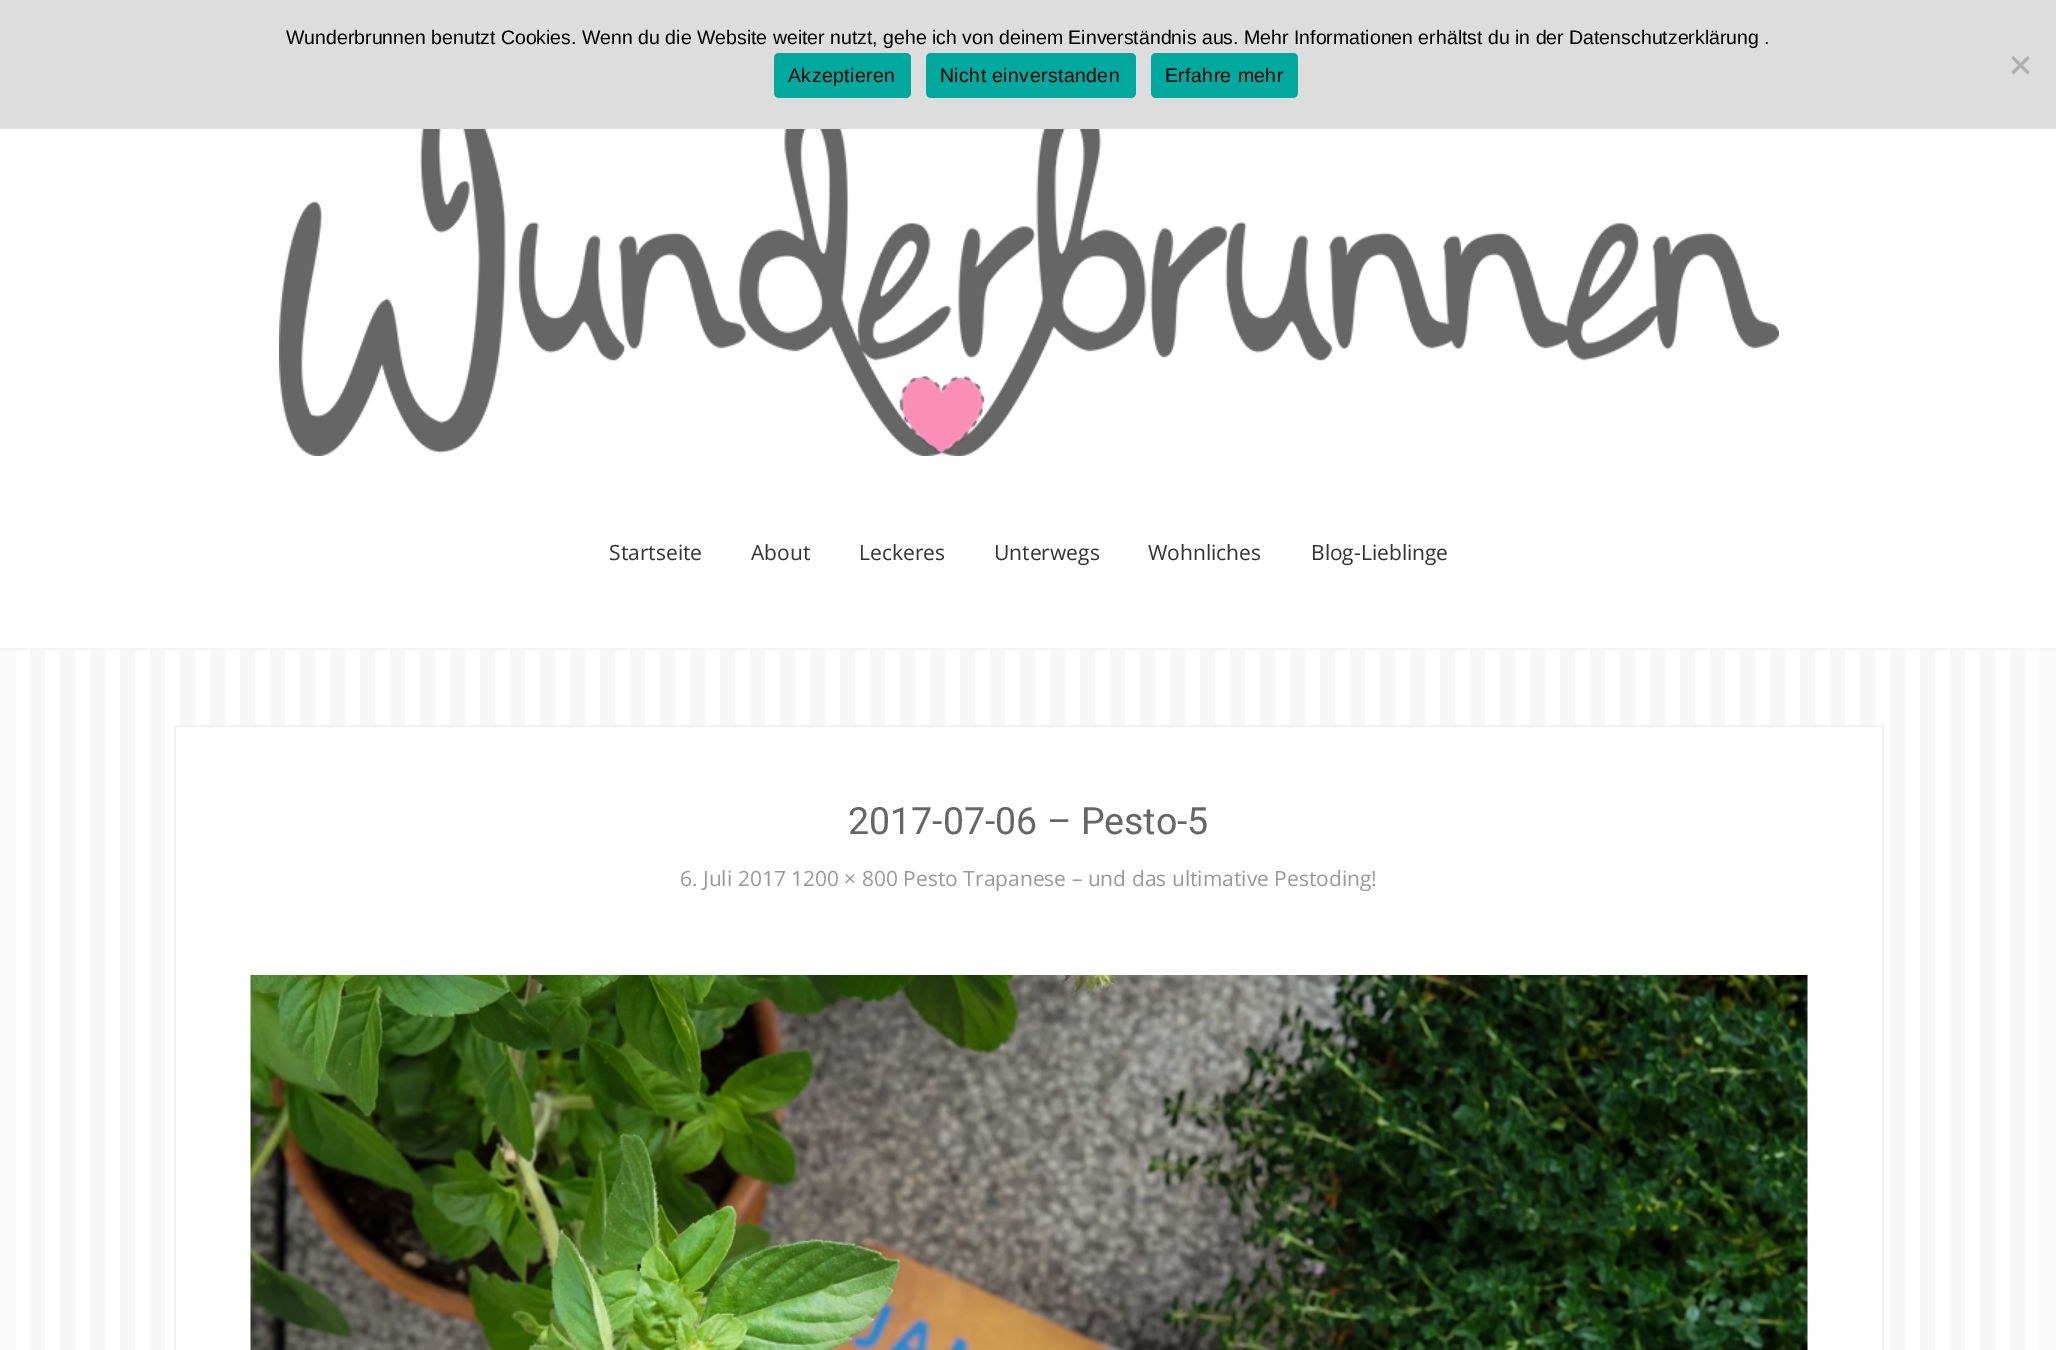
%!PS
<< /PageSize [2056 1350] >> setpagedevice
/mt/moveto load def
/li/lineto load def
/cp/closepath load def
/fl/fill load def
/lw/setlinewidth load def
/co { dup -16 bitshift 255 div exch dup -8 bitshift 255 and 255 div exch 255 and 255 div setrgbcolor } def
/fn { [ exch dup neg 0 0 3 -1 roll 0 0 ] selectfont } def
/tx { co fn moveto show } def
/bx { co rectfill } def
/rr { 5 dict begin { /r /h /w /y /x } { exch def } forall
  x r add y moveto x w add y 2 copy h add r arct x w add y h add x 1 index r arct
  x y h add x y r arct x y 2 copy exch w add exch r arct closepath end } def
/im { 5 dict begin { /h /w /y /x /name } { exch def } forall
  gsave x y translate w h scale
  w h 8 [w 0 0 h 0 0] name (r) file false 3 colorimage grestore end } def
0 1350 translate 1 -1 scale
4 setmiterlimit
0 0 2056 1350 16#FAFAFA bx
(media/1.raw) 16 650 2023 700 im
0 0 2056 129 16#DDDDDD bx
16#00A99D co
774 53 137 45 5 rr fl
926 53 210 45 5 rr fl
1151 53 147 45 5 rr fl
16#AFAFAF co
2027.5 56 mt 2029.5 58.5 li 2013.5 74.5 li 2011.5 72 li cp fl
2011.5 58.5 mt 2013.5 56 li 2029.5 72 li 2027.5 74.5 li cp fl
0 129 2056 519 16#FFFFFF bx
0 648 2056 2 16#F5F5F5 bx
(media/2.raw) 279 129 1500 327 im
180 727 1695 623 16#FFFFFF bx
16#F2F2F2 co
2 lw
175 726 1708 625 rectstroke
(media/3.raw) 250 975 1558 375 im
(Wunderbrunnen benutzt Cookies. Wenn du die Website weiter nutzt, gehe ich von deinem Einverständnis aus. Mehr Informationen erhältst du in der Datenschutzerklärung .) 286 44 /LiberationSans-Regular 19.5 16#000000 tx
788 82 mt .4 0 (Akzeptieren) ashow
940 82 mt .4 0 (Nicht einverstanden) ashow
1165 82 mt .4 0 (Erfahre mehr) ashow
(Startseite) 609 560 /OpenSans-Regular 21 16#333333 tx
(About) 751 560 /OpenSans-Regular 21 16#333333 tx
(Leckeres) 859 560 /OpenSans-Regular 21 16#333333 tx
(Unterwegs) 994 560 /OpenSans-Regular 21 16#333333 tx
(Wohnliches) 1148 560 /OpenSans-Regular 21 16#333333 tx
(Blog-Lieblinge) 1311 560 /OpenSans-Regular 21 16#333333 tx
(2017-07-06 – Pesto-5) 848 834 /Roboto-Regular 37.5 16#666666 tx
(6. Juli 2017 1200 × 800 Pesto Trapanese – und das ultimative Pestoding!) 680 886 /OpenSans-Regular 21 16#999999 tx
showpage
